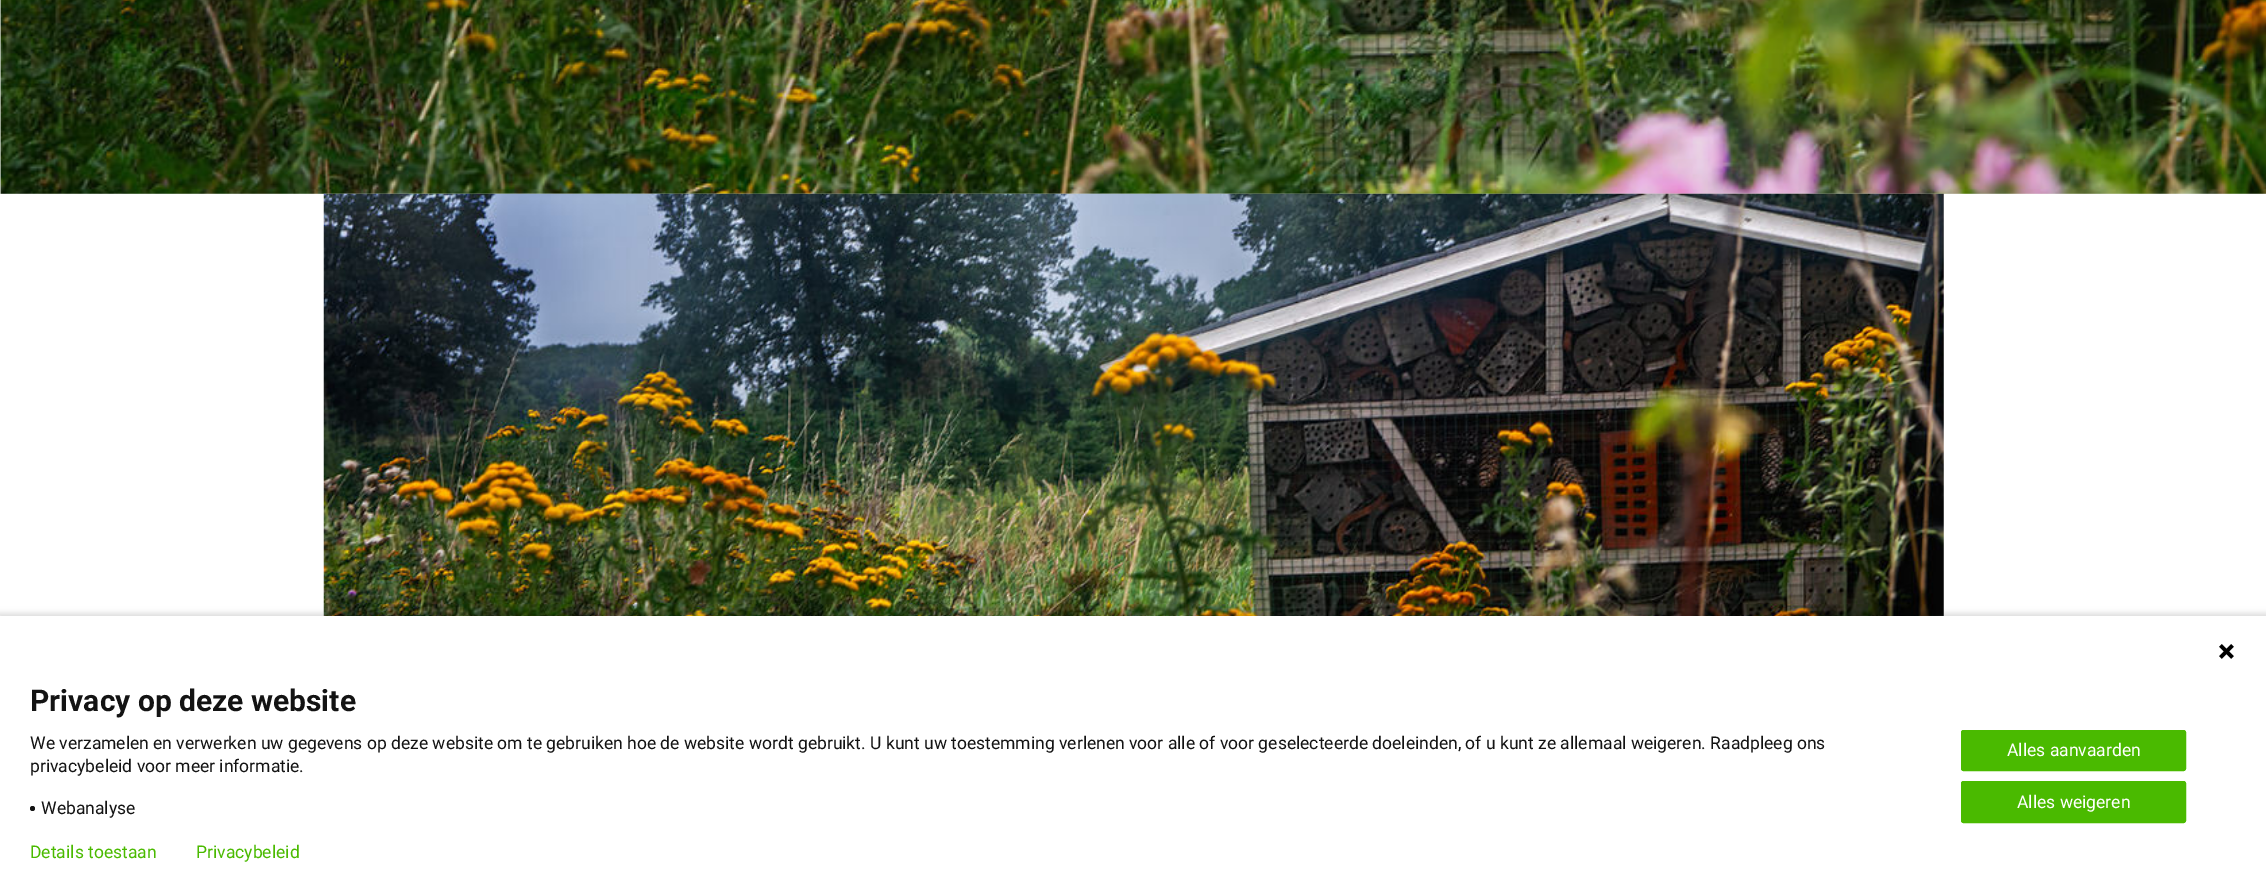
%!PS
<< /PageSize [2266 890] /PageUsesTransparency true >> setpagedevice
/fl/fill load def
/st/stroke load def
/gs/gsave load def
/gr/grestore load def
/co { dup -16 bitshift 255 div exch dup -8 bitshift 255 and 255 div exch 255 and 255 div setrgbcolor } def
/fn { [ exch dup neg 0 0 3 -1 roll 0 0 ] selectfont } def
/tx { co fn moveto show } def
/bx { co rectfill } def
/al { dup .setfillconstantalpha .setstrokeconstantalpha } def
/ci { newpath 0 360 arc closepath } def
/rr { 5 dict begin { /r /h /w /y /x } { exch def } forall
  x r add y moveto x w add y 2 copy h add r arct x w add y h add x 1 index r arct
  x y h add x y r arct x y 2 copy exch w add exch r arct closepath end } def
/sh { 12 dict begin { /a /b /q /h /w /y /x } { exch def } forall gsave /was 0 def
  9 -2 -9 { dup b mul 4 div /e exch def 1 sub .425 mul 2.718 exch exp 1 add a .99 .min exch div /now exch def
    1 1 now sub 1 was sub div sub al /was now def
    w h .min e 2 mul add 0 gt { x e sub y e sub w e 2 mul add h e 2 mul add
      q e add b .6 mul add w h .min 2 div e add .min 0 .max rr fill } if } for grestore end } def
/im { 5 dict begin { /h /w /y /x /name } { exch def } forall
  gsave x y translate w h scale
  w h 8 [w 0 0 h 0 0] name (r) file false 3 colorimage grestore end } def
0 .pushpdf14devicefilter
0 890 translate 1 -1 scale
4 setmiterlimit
0 0 2266 890 16#FFFFFF bx
(media/1.raw) 0 0 2266 194 im
(media/2.raw) 323 193 1621 423 im
0.1 al
0 0 2266 194 16#265F00 bx
1 al
16#000000 co
-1 613 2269 276 0 3 .14 sh
0 616 2266 274 16#FFFFFF bx
(media/3.raw) 2219 644 15 15 im
16#131313 co
32.5 808.5 2.5 ci fl
16#4ABA00 co
1961.5 730.5 224 40 2 rr gs fl gr
st
1961.5 781.5 224 41 2 rr gs fl gr
st
(Privacy op deze website) 30 711 /Roboto-Bold 30 16#131313 tx
(We verzamelen en verwerken uw gegevens op deze website om te gebruiken hoe de website wordt gebruikt. U kunt uw toestemming verlenen voor alle of voor geselecteerde doeleinden, of u kunt ze allemaal weigeren. Raadpleeg ons) 30 749 /Roboto-Regular 17.5 16#131313 tx
(privacybeleid voor meer informatie.) 30 772 /Roboto-Regular 17.5 16#131313 tx
(Webanalyse) 41 814 /Roboto-Regular 17.5 16#131313 tx
(Alles aanvaarden) 2007 756 /Roboto-Regular 17.5 16#FFFFFF tx
(Alles weigeren) 2017 808 /Roboto-Regular 17.5 16#FFFFFF tx
(Details toestaan) 30 858 /Roboto-Regular 17.5 16#4ABA00 tx
(Privacybeleid) 196 858 /Roboto-Regular 17.5 16#4ABA00 tx
.poppdf14devicefilter showpage
